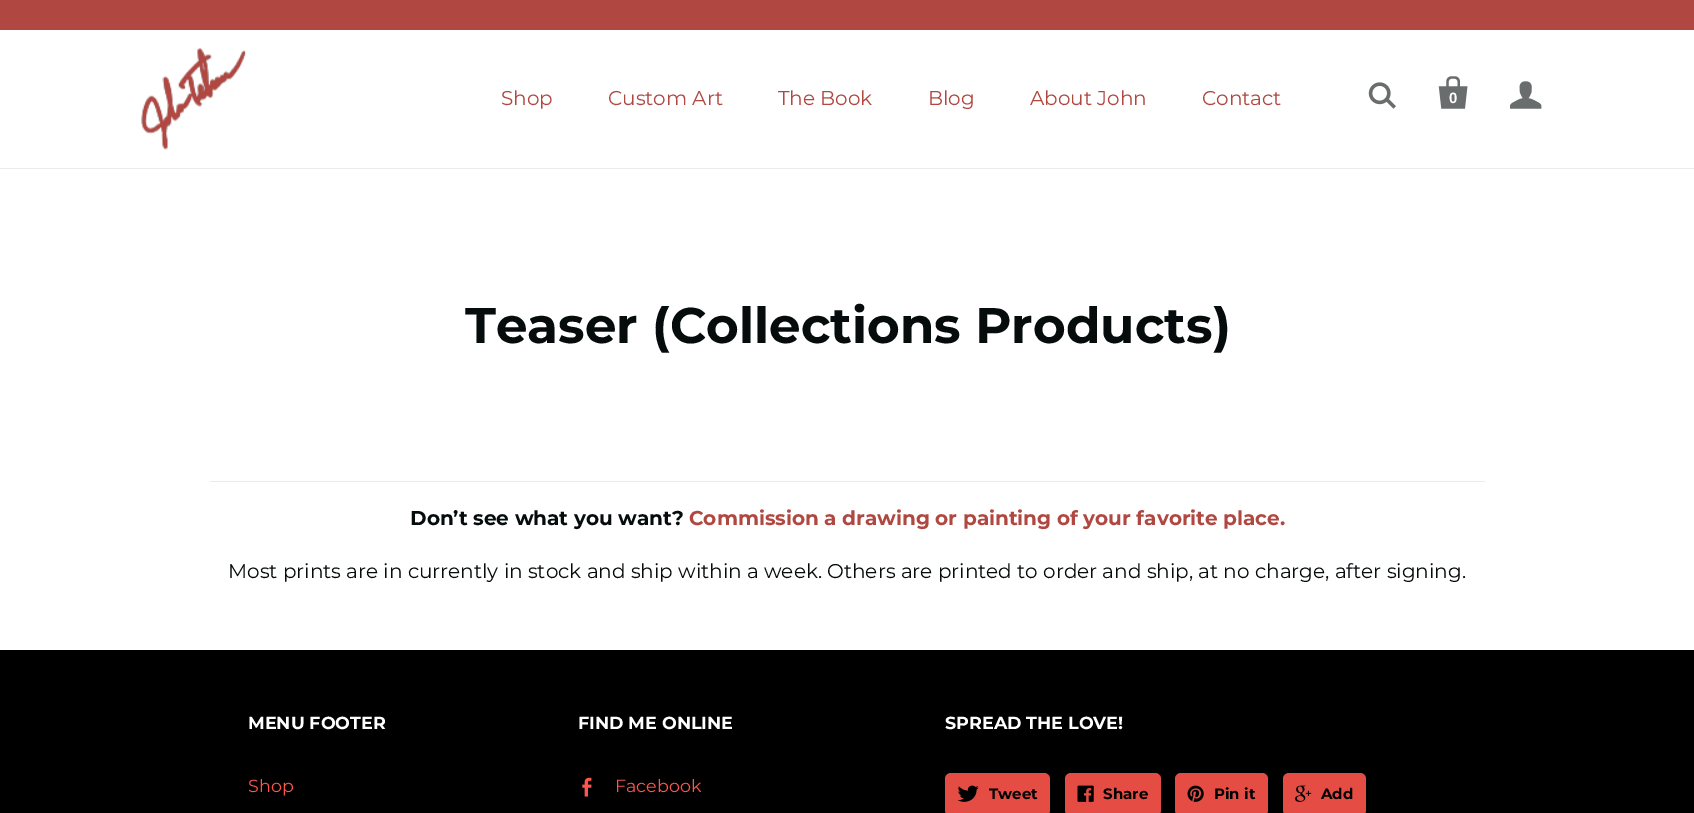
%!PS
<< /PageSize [1694 813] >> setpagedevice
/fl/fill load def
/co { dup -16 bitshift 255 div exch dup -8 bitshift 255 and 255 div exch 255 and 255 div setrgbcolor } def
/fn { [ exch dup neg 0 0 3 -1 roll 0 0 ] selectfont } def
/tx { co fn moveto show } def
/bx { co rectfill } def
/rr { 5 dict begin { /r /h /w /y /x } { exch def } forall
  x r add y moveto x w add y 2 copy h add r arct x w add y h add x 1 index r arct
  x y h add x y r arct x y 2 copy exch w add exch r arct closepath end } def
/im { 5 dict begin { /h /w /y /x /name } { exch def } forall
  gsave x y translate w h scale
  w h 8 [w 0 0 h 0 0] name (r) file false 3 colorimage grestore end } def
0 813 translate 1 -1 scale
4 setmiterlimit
0 0 1694 813 16#FFFFFF bx
0 168 1694 1 16#E8ECED bx
0 0 1694 30 16#B04741 bx
(media/1.raw) 141 48 105 102 im
(media/2.raw) 1368 82 28 27 im
(media/3.raw) 1438 76 30 33 im
(media/4.raw) 1510 81 32 28 im
210 481 1275 1 16#E8ECED bx
0 650 1694 163 16#000000 bx
(media/5.raw) 582 777 10 20 im
16#E54D44 co
945 773 105 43 6 rr fl
(media/6.raw) 957 785 22 17 im
1065 773 96 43 6 rr fl
(media/7.raw) 1077 785 17 17 im
1175 773 93 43 6 rr fl
(media/8.raw) 1187 785 17 17 im
1283 773 83 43 6 rr fl
(media/9.raw) 1295 785 17 17 im
(Shop) 501 105 /Montserrat-Regular 20 16#B04741 tx
(Custom Art) 608 105 /Montserrat-Regular 20 16#B04741 tx
(The Book) 778 105 /Montserrat-Regular 20 16#B04741 tx
(Blog) 928 105 /Montserrat-Regular 20 16#B04741 tx
(About John) 1030 105 /Montserrat-Regular 20 16#B04741 tx
(Contact) 1202 105 /Montserrat-Regular 20 16#B04741 tx
(0) 1449 103 /LiberationSans-Bold 15 16#FFFFFF tx
(Teaser \(Collections Products\)) 465 343 /Montserrat-Bold 50 16#060C0C tx
(Don’t see what you want?) 410 525 /Montserrat-Bold 20 16#060C0C tx
(Commission a drawing or painting of your favorite place.) 689 525 /Montserrat-Bold 20 16#B04741 tx
(Most prints are in currently in stock and ship within a week. Others are printed to order and ship, at no charge, after signing.) 228 578 /Montserrat-Regular 20 16#060C0C tx
(MENU FOOTER) 248 729 /Montserrat-Bold 17.5 16#FFFFFF tx
(Shop) 248 792 /Montserrat-Regular 17.5 16#FE564C tx
(FIND ME ONLINE) 578 729 /Montserrat-Bold 17.5 16#FFFFFF tx
(Facebook) 615 792 /Montserrat-Regular 17.5 16#FE564C tx
(SPREAD THE LOVE!) 945 729 /Montserrat-Bold 17.5 16#FFFFFF tx
(Tweet) 989 799 /Montserrat-Bold 15 16#000000 tx
(Share) 1103 799 /Montserrat-Bold 15 16#000000 tx
(Pin it) 1214 799 /Montserrat-Bold 15 16#000000 tx
(Add) 1321 799 /Montserrat-Bold 15 16#000000 tx
showpage
